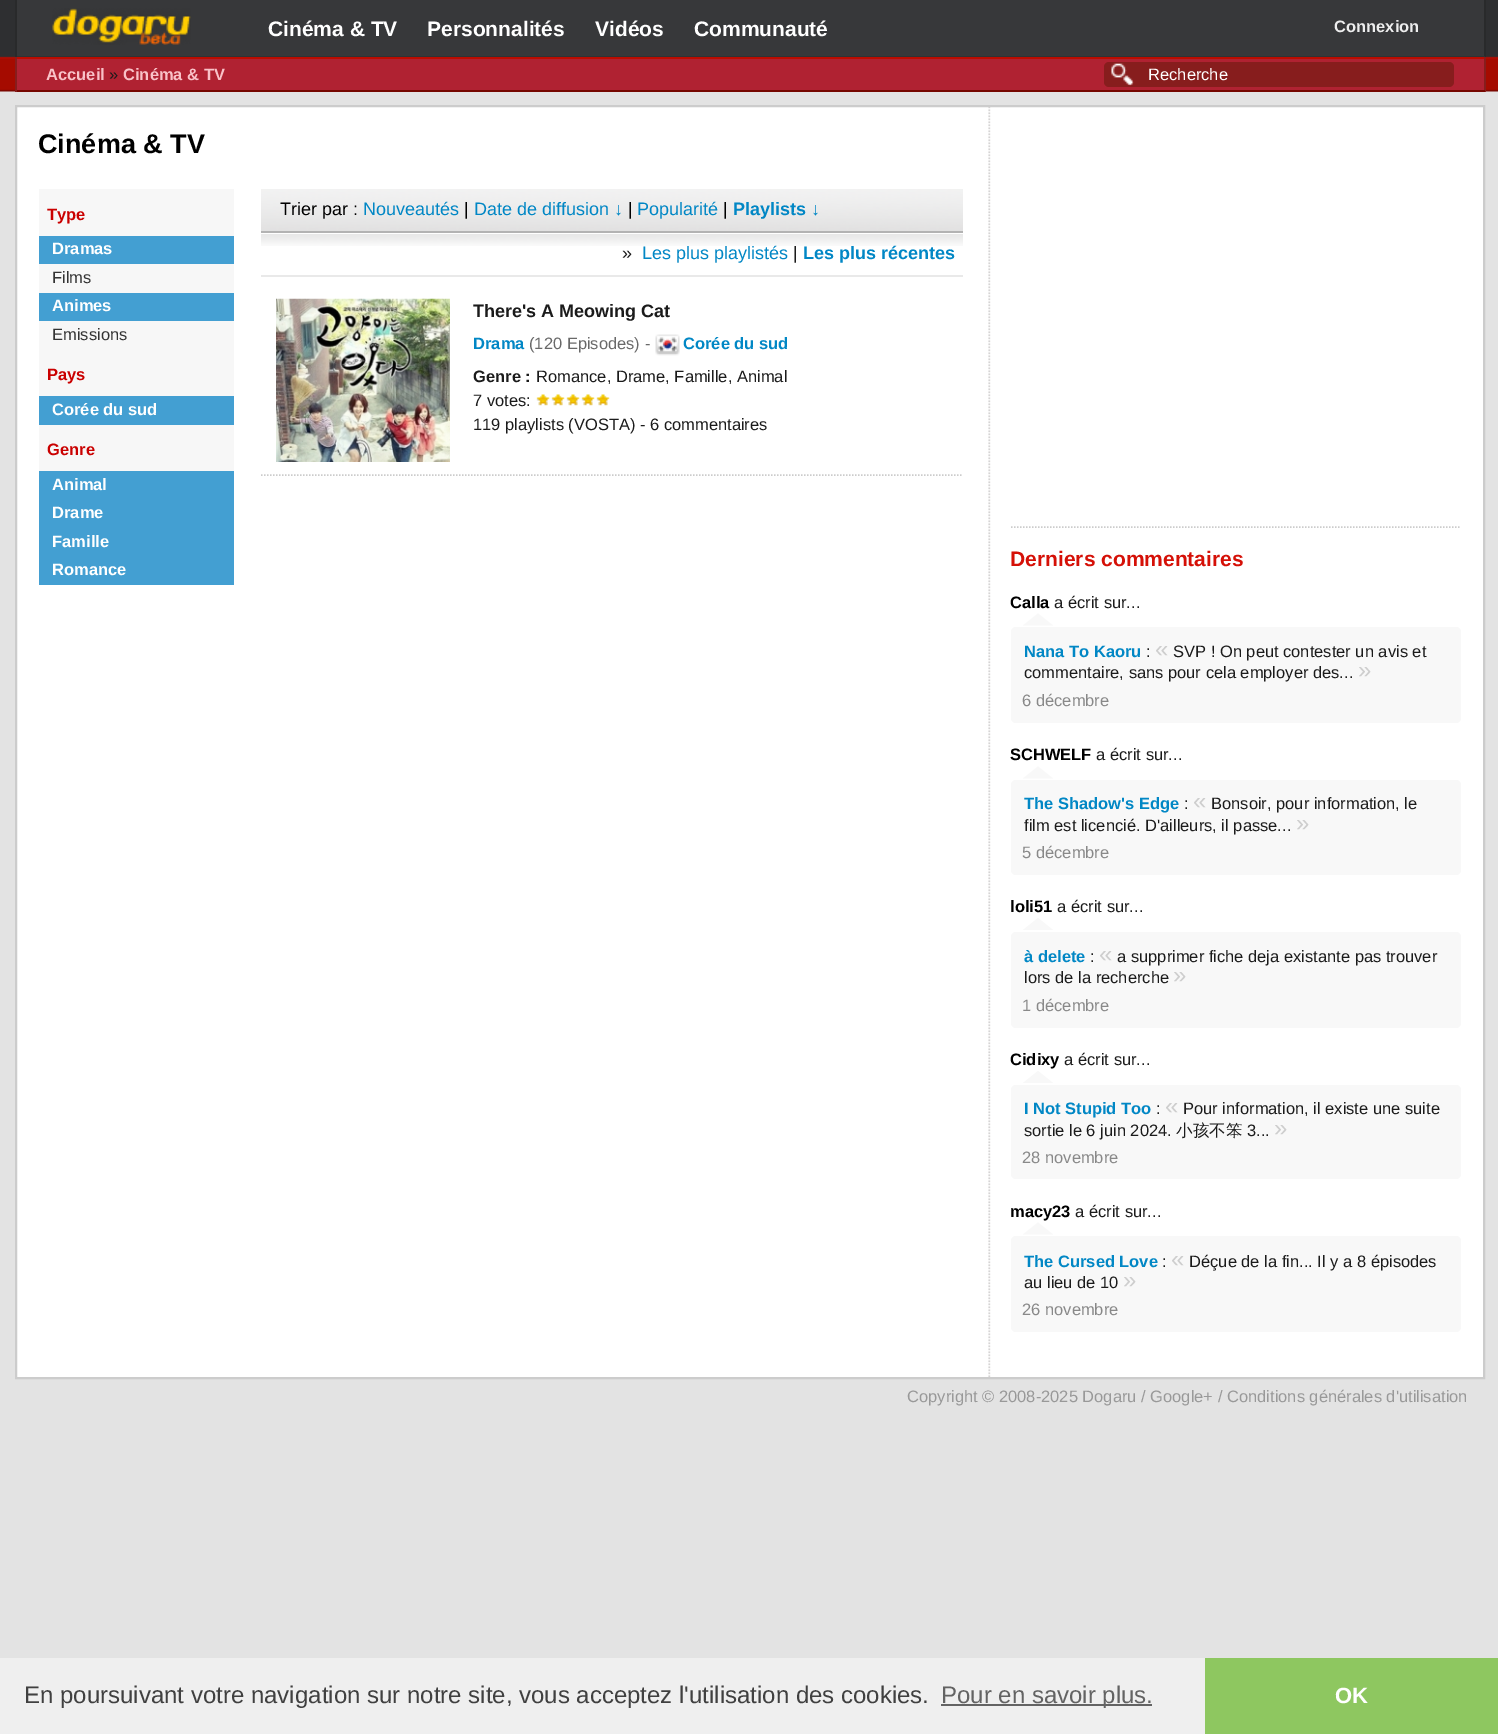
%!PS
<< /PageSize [1498 1734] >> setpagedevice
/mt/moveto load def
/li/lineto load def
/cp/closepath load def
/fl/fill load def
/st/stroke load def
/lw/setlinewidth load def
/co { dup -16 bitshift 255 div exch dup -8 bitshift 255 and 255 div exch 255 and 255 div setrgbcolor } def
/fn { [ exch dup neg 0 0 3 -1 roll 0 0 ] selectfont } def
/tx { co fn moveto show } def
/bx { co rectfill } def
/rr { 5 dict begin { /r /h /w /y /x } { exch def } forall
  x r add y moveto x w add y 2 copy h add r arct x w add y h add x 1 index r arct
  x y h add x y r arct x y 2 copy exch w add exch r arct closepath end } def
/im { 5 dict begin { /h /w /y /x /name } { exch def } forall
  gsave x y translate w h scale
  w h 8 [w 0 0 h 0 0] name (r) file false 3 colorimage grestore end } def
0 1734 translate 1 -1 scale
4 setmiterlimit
0 0 1498 1734 16#E3E3E3 bx
(media/1.raw) 0 0 1498 92 im
17 0 1467 56 16#37383A bx
1484 0 2 57 16#292A2B bx
15 56 1470 1 16#313233 bx
15 0 2 57 16#292A2B bx
(media/2.raw) 52 8 139 37 im
17 59 1467 31 16#B02232 bx
15 57 1470 2 16#BB0C00 bx
1484 57 2 35 16#871D1D bx
15 90 1470 2 16#760700 bx
15 57 2 35 16#871D1D bx
1104 62 350 25 5 rr fl
(media/3.raw) 1111 63 23 23 im
17 107 1466 1270 16#FFFFFF bx
(media/4.raw) 988 107 3 1270 im
16#CCCCCC co
2 lw
16 106 1468 1272 rectstroke
39 189 195 47 16#F7F7F7 bx
39 236 195 28 16#439FD2 bx
39 264 195 29 16#F7F7F7 bx
39 293 195 28 16#439FD2 bx
39 321 195 75 16#F7F7F7 bx
39 396 195 29 16#439FD2 bx
39 425 195 46 16#F7F7F7 bx
39 471 195 114 16#439FD2 bx
(media/5.raw) 261 189 702 42 im
261 231 702 2 16#B3B3B3 bx
(media/6.raw) 261 234 702 12 im
261 275 702 2 16#E9E9E9 bx
16#CCCCCC co
1.5 lw
[1.5 1.5] 0 setdash
261 475 mt 963 475 li st
(media/7.raw) 276 298 174 164 im
(media/8.raw) 655 334 25 22 im
(media/9.raw) 536 394 74 12 im
1011 527 mt 1461 527 li st
16#F8F8F8 co
1011 627 450 96 5 rr fl
1053 625.5 mt 1023 625.5 li 1038 613.5 li cp fl
1011 780 450 95 5 rr fl
1053 778.5 mt 1023 778.5 li 1038 766.5 li cp fl
1011 932 450 96 5 rr fl
1053 930 mt 1023 930 li 1038 918 li cp fl
1011 1085 450 94 5 rr fl
1053 1083 mt 1023 1083 li 1038 1071 li cp fl
1011 1236 450 96 5 rr fl
1053 1234.5 mt 1023 1234.5 li 1038 1222.5 li cp fl
0 1658 1205 76 16#EFEFEF bx
941 1704 211 2 16#636363 bx
1205 1658 293 76 16#8EC760 bx
(Cinéma & TV) 268 36 /LiberationSans-Bold 21 16#FFFFFF tx
(Personnalités) 427 36 /LiberationSans-Bold 21 16#FFFFFF tx
(Vidéos) 595 36 /LiberationSans-Bold 21 16#FFFFFF tx
(Communauté) 694 36 /LiberationSans-Bold 21 16#FFFFFF tx
(Connexion) 1334 32 /LiberationSans-Bold 16.5 16#EEEEEE tx
(Accueil) 46 80 /LiberationSans-Bold 16.5 16#F9C2C8 tx
(») 109 80 /LiberationSans-Regular 16.5 16#1B1B1B tx
(Cinéma & TV) 123 80 /LiberationSans-Bold 16.5 16#F9C2C8 tx
(Recherche) 1148 80 /LiberationSans-Regular 16.5 16#FFFFFF tx
(Cinéma & TV) 38 153 /LiberationSans-Bold 27 16#000000 tx
(Type) 47 220 /LiberationSans-Bold 16.5 16#CA0000 tx
(Dramas) 52 254 /LiberationSans-Bold 16.5 16#FFFFFF tx
(Films) 52 283 /LiberationSans-Regular 16.5 16#333333 tx
(Animes) 52 311 /LiberationSans-Bold 16.5 16#FFFFFF tx
(Emissions) 52 340 /LiberationSans-Regular 16.5 16#333333 tx
(Pays) 47 380 /LiberationSans-Bold 16.5 16#CA0000 tx
(Corée du sud) 52 415 /LiberationSans-Bold 16.5 16#FFFFFF tx
(Genre) 47 455 /LiberationSans-Bold 16.5 16#CA0000 tx
(Animal) 52 490 /LiberationSans-Bold 16.5 16#FFFFFF tx
(Drame) 52 518 /LiberationSans-Bold 16.5 16#FFFFFF tx
(Famille) 52 547 /LiberationSans-Bold 16.5 16#FFFFFF tx
(Romance) 52 575 /LiberationSans-Bold 16.5 16#FFFFFF tx
(Trier par :) 280 215 /LiberationSans-Regular 18 16#000000 tx
(Nouveautés) 363 215 /LiberationSans-Regular 18 16#0187C5 tx
(|) 464 215 /LiberationSans-Regular 18 16#000000 tx
(Date de diffusion ↓) 474 215 /LiberationSans-Regular 18 16#0187C5 tx
(|) 628 215 /LiberationSans-Regular 18 16#000000 tx
(Popularité) 637 215 /LiberationSans-Regular 18 16#0187C5 tx
(|) 723 215 /LiberationSans-Regular 18 16#000000 tx
(Playlists ↓) 733 215 /LiberationSans-Bold 18 16#0187C5 tx
(») 622 259 /LiberationSans-Regular 18 16#1B1B1B tx
(Les plus playlistés) 642 259 /LiberationSans-Regular 18 16#0187C5 tx
(|) 793 259 /LiberationSans-Regular 18 16#1B1B1B tx
(Les plus récentes) 803 259 /LiberationSans-Bold 18 16#0187C5 tx
(There's A Meowing Cat) 473 317 /LiberationSans-Bold 18 16#1B1B1B tx
(Drama) 473 349 /LiberationSans-Bold 16.5 16#0187C5 tx
(\(120 Episodes\) -) 529 349 /LiberationSans-Regular 16.5 16#696969 tx
(Corée du sud) 683 349 /LiberationSans-Bold 16.5 16#0187C5 tx
(Genre :) 473 382 /LiberationSans-Bold 16.5 16#1B1B1B tx
(Romance, Drame, Famille, Animal) 536 382 /LiberationSans-Regular 16.5 16#1B1B1B tx
(7 votes:) 473 406 /LiberationSans-Regular 16.5 16#1B1B1B tx
(119 playlists \(VOSTA\) - 6 commentaires) 473 430 /LiberationSans-Regular 16.5 16#1B1B1B tx
(Derniers commentaires) 1010 566 /LiberationSans-Bold 21 16#D51007 tx
(Calla) 1010 608 /LiberationSans-Bold 16.5 16#000000 tx
(a écrit sur...) 1054 608 /LiberationSans-Regular 16.5 16#1B1B1B tx
(Nana To Kaoru) 1024 657 /LiberationSans-Bold 16.5 16#0187C5 tx
(:) 1146 657 /LiberationSans-Regular 16.5 16#1B1B1B tx
(«) 1155 657 /LiberationSans-Regular 24 16#CECECE tx
(SVP ! On peut contester un avis et) 1173 657 /LiberationSans-Regular 16.5 16#1B1B1B tx
(commentaire, sans pour cela employer des...) 1024 678 /LiberationSans-Regular 16.5 16#1B1B1B tx
(») 1358 678 /LiberationSans-Regular 24 16#CECECE tx
(6 décembre) 1022 706 /LiberationSans-Regular 16.5 16#898989 tx
(SCHWELF) 1010 760 /LiberationSans-Bold 16.5 16#000000 tx
(a écrit sur...) 1096 760 /LiberationSans-Regular 16.5 16#1B1B1B tx
(The Shadow's Edge) 1024 809 /LiberationSans-Bold 16.5 16#0187C5 tx
(:) 1184 809 /LiberationSans-Regular 16.5 16#1B1B1B tx
(«) 1193 809 /LiberationSans-Regular 24 16#CECECE tx
(Bonsoir, pour information, le) 1211 809 /LiberationSans-Regular 16.5 16#1B1B1B tx
(film est licencié. D'ailleurs, il passe...) 1024 831 /LiberationSans-Regular 16.5 16#1B1B1B tx
(») 1296 831 /LiberationSans-Regular 24 16#CECECE tx
(5 décembre) 1022 858 /LiberationSans-Regular 16.5 16#898989 tx
(loli51) 1010 912 /LiberationSans-Bold 16.5 16#000000 tx
(a écrit sur...) 1057 912 /LiberationSans-Regular 16.5 16#1B1B1B tx
(à delete) 1024 962 /LiberationSans-Bold 16.5 16#0187C5 tx
(:) 1090 962 /LiberationSans-Regular 16.5 16#1B1B1B tx
(«) 1099 962 /LiberationSans-Regular 24 16#CECECE tx
(a supprimer fiche deja existante pas trouver) 1117 962 /LiberationSans-Regular 16.5 16#1B1B1B tx
(lors de la recherche) 1024 983 /LiberationSans-Regular 16.5 16#1B1B1B tx
(») 1173 983 /LiberationSans-Regular 24 16#CECECE tx
(1 décembre) 1022 1011 /LiberationSans-Regular 16.5 16#898989 tx
(Cidixy) 1010 1065 /LiberationSans-Bold 16.5 16#000000 tx
(a écrit sur...) 1064 1065 /LiberationSans-Regular 16.5 16#1B1B1B tx
(I Not Stupid Too) 1024 1114 /LiberationSans-Bold 16.5 16#0187C5 tx
(:) 1156 1114 /LiberationSans-Regular 16.5 16#1B1B1B tx
(«) 1165 1114 /LiberationSans-Regular 24 16#CECECE tx
(Pour information, il existe une suite) 1183 1114 /LiberationSans-Regular 16.5 16#1B1B1B tx
(sortie le 6 juin 2024.) 1024 1136 /LiberationSans-Regular 16.5 16#1B1B1B tx
(小孩不笨) 1176 1136 /WenQuanYiZenHei-Medium 16.5 16#1B1B1B tx
(3...) 1247 1136 /LiberationSans-Regular 16.5 16#1B1B1B tx
(») 1274 1136 /LiberationSans-Regular 24 16#CECECE tx
(28 novembre) 1022 1163 /LiberationSans-Regular 16.5 16#898989 tx
(macy23) 1010 1217 /LiberationSans-Bold 16.5 16#000000 tx
(a écrit sur...) 1075 1217 /LiberationSans-Regular 16.5 16#1B1B1B tx
(The Cursed Love) 1024 1267 /LiberationSans-Bold 16.5 16#0187C5 tx
(:) 1162 1267 /LiberationSans-Regular 16.5 16#1B1B1B tx
(«) 1171 1267 /LiberationSans-Regular 24 16#CECECE tx
(Déçue de la fin... Il y a 8 épisodes) 1189 1267 /LiberationSans-Regular 16.5 16#1B1B1B tx
(au lieu de 10) 1024 1288 /LiberationSans-Regular 16.5 16#1B1B1B tx
(») 1123 1288 /LiberationSans-Regular 24 16#CECECE tx
(26 novembre) 1022 1315 /LiberationSans-Regular 16.5 16#898989 tx
(Copyright © 2008-2025 Dogaru / Google+ / Conditions générales d'utilisation) 907 1402 /LiberationSans-Regular 16.5 16#999999 tx
(En poursuivant votre navigation sur notre site, vous acceptez l'utilisation des cookies.) 24 1703 /LiberationSans-Regular 24 16#404040 tx
(Pour en savoir plus.) 941 1703 /LiberationSans-Regular 24 16#636363 tx
(OK) 1335 1703 /LiberationSans-Bold 22 16#FFFFFF tx
showpage
